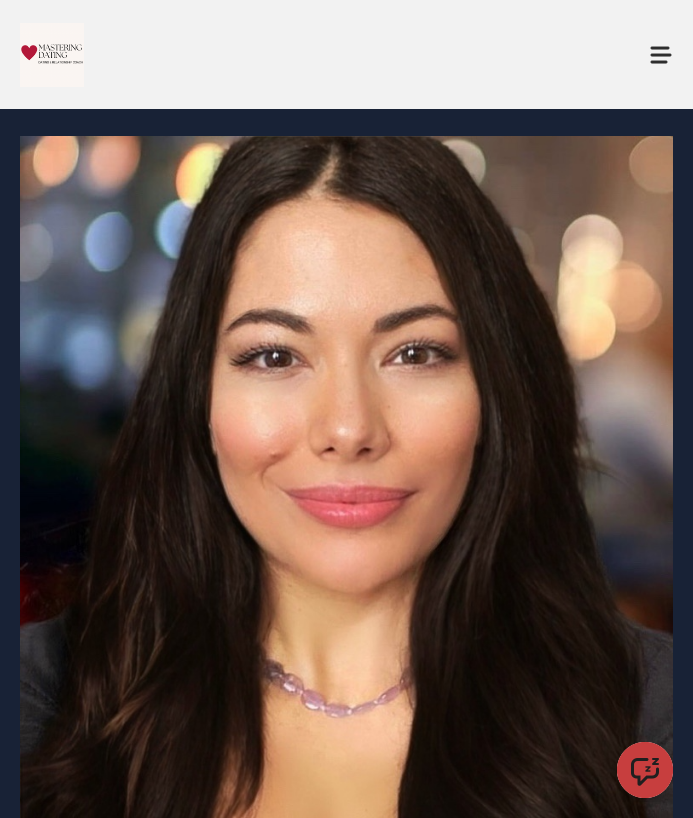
%!PS
<< /PageSize [693 818] >> setpagedevice
/fl/fill load def
/co { dup -16 bitshift 255 div exch dup -8 bitshift 255 and 255 div exch 255 and 255 div setrgbcolor } def
/bx { co rectfill } def
/ci { newpath 0 360 arc closepath } def
/im { 5 dict begin { /h /w /y /x /name } { exch def } forall
  gsave x y translate w h scale
  w h 8 [w 0 0 h 0 0] name (r) file false 3 colorimage grestore end } def
0 818 translate 1 -1 scale
4 setmiterlimit
0 0 693 818 16#F2F2F2 bx
(media/1.raw) 20 23 64 64 im
(media/2.raw) 650 46 22 18 im
0 109 693 709 16#182236 bx
(media/3.raw) 20 136 653 682 im
(media/4.raw) 617 742 56 60 im
16#C73E3E co
645 770 28 ci fl
(media/5.raw) 631 758 28 28 im
showpage
